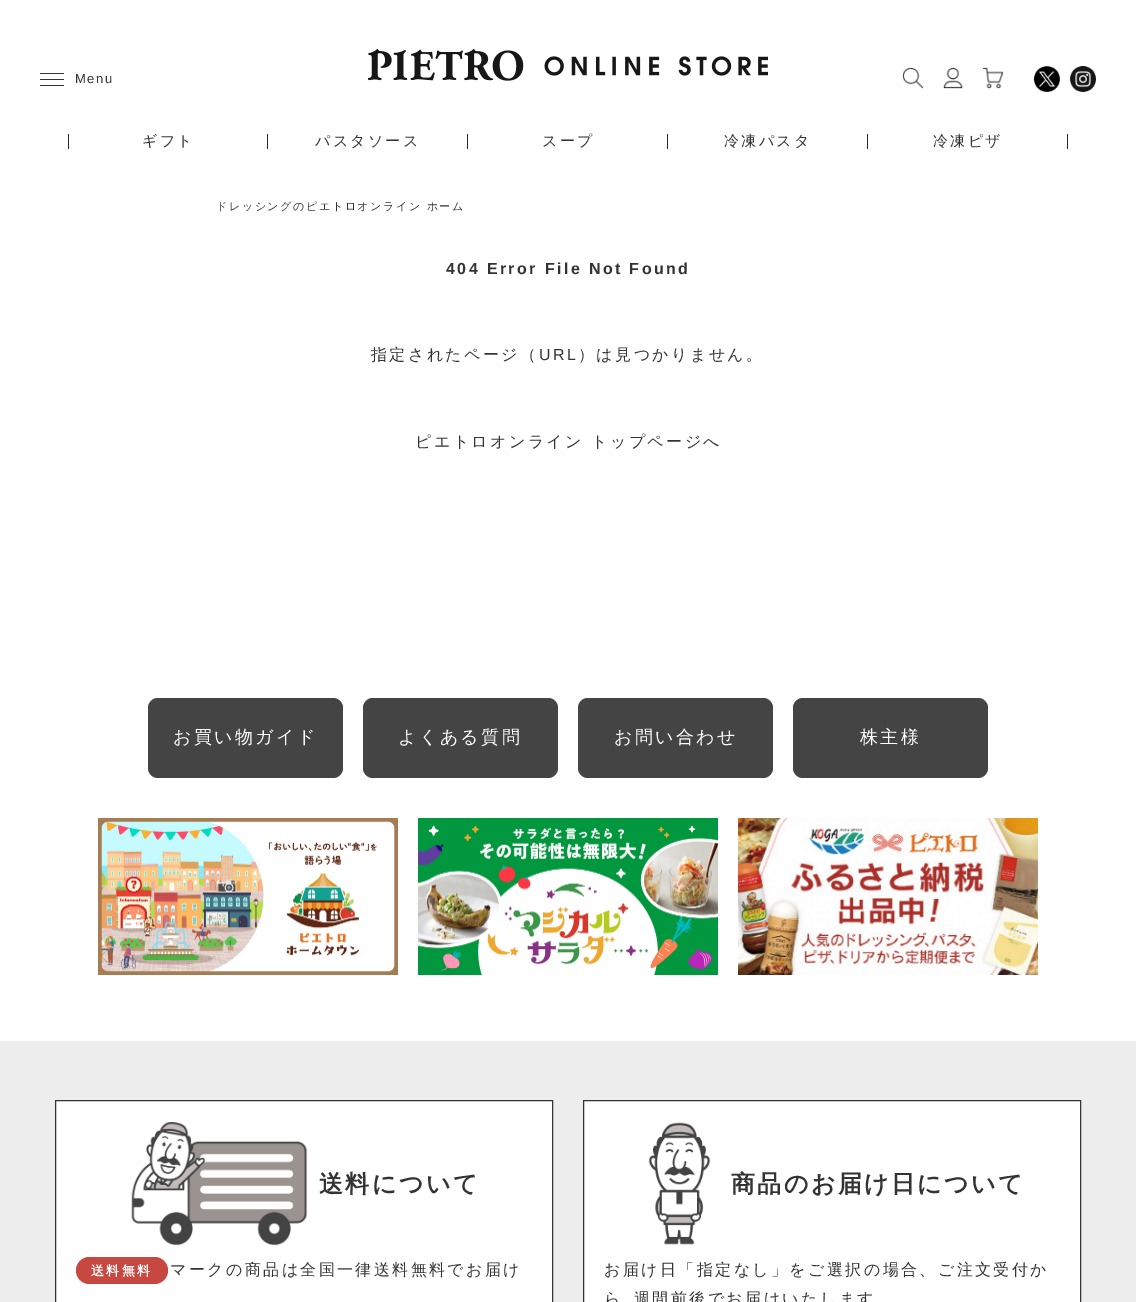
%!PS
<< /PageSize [1136 1302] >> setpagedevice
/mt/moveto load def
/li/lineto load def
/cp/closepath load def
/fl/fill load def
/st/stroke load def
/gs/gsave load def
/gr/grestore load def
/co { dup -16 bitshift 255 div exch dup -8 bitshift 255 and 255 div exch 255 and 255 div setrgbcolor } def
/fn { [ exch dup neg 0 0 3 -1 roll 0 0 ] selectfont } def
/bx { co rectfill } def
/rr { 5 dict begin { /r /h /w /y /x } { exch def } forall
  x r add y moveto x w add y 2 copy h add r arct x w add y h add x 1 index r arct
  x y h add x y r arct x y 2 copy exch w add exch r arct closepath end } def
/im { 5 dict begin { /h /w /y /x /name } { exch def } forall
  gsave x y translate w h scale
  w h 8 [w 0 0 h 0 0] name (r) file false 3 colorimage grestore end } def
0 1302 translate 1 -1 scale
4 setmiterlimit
0 0 1136 1302 16#FFFFFF bx
40 73 24 1 16#333333 bx
40 79 24 1 16#333333 bx
40 85 24 1 16#333333 bx
(media/1.raw) 902 67 22 22 im
(media/2.raw) 943 67 20 22 im
(media/3.raw) 982 67 22 22 im
(media/4.raw) 1034 66 26 26 im
(media/5.raw) 1070 66 26 26 im
(media/6.raw) 368 49 400 32 im
68 134 1 15 16#292929 bx
267 134 1 15 16#292929 bx
467 134 1 15 16#292929 bx
667 134 1 15 16#292929 bx
867 134 1 15 16#292929 bx
1067 134 1 15 16#292929 bx
16#444444 co
148 698 195 80 10 rr fl
363 698 195 80 10 rr fl
578 698 195 80 10 rr fl
793 698 195 80 10 rr fl
(media/7.raw) 98 818 300 157 im
(media/8.raw) 418 818 300 157 im
(media/9.raw) 738 818 300 157 im
0 1041 1136 261 16#EDEDED bx
16#FFFFFF co
55.5 1100.5 mt 552.5 1100.5 li 552.5 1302.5 li 55.5 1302.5 li cp gs fl gr
16#333333 co
st
(media/10.raw) 131 1122 177 124 im
16#C74741 co
76 1257 92 27 13.5 rr fl
16#FFFFFF co
583.5 1100.5 mt 1080.5 1100.5 li 1080.5 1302.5 li 583.5 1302.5 li cp gs fl gr
16#333333 co
st
(media/11.raw) 648 1122 63 123 im
/LiberationSans-Regular 13 fn
75 83 mt 1.5 0 (Menu) ashow
/WenQuanYiZenHei-Medium 15 fn
142 146 mt 2.25 0 (ギフト) ashow
315 146 mt 2.25 0 (パスタソース) ashow
542 146 mt 2.25 0 (スープ) ashow
724 146 mt 2.25 0 (冷凍パスタ) ashow
933 146 mt 2.25 0 (冷凍ピザ) ashow
/WenQuanYiZenHei-Medium 11 fn
216 210 mt 1.6 0 (ドレッシングのピエトロオンライン ホーム) ashow
/LiberationSans-Bold 16 fn
446 274 mt 2.4 0 (404 Error File Not Found) ashow
/WenQuanYiZenHei-Medium 16 fn
371 360 mt 2.4 0 (指定されたページ（) ashow
/LiberationSans-Regular 16 fn
539 360 mt 2.4 0 (URL) ashow
/WenQuanYiZenHei-Medium 16 fn
578 360 mt 2.4 0 (）は見つかりません。) ashow
415 447 mt 2.4 0 (ピエトロオンライン トップページへ) ashow
/WenQuanYiZenHei-Medium 18 fn
16#FFFFFF co
173 743 mt 2.4 0 (お買い物ガイド) ashow
398 743 mt 2.4 0 (よくある質問) ashow
614 743 mt 2.4 0 (お問い合わせ) ashow
860 743 mt 2.4 0 (株主様) ashow
/WenQuanYiZenHei-Bold 24 fn
16#333333 co
319 1192 mt 2.4 0 (送料について) ashow
/WenQuanYiZenHei-Bold 13 fn
16#FFFFFF co
91 1275 mt 2.4 0 (送料無料) ashow
/WenQuanYiZenHei-Medium 16 fn
16#333333 co
170 1275 mt 2.4 0 (マークの商品は全国一律送料無料でお届け) ashow
/WenQuanYiZenHei-Bold 24 fn
731 1192 mt 2.4 0 (商品のお届け日について) ashow
/WenQuanYiZenHei-Medium 16 fn
604 1275 mt 2.4 0 (お届け日「指定なし」をご選択の場合、ご注文受付か) ashow
604 1304 mt 2.4 0 (ら) ashow
634 1304 mt 2.4 0 (週間前後でお届けいたします) ashow
showpage
